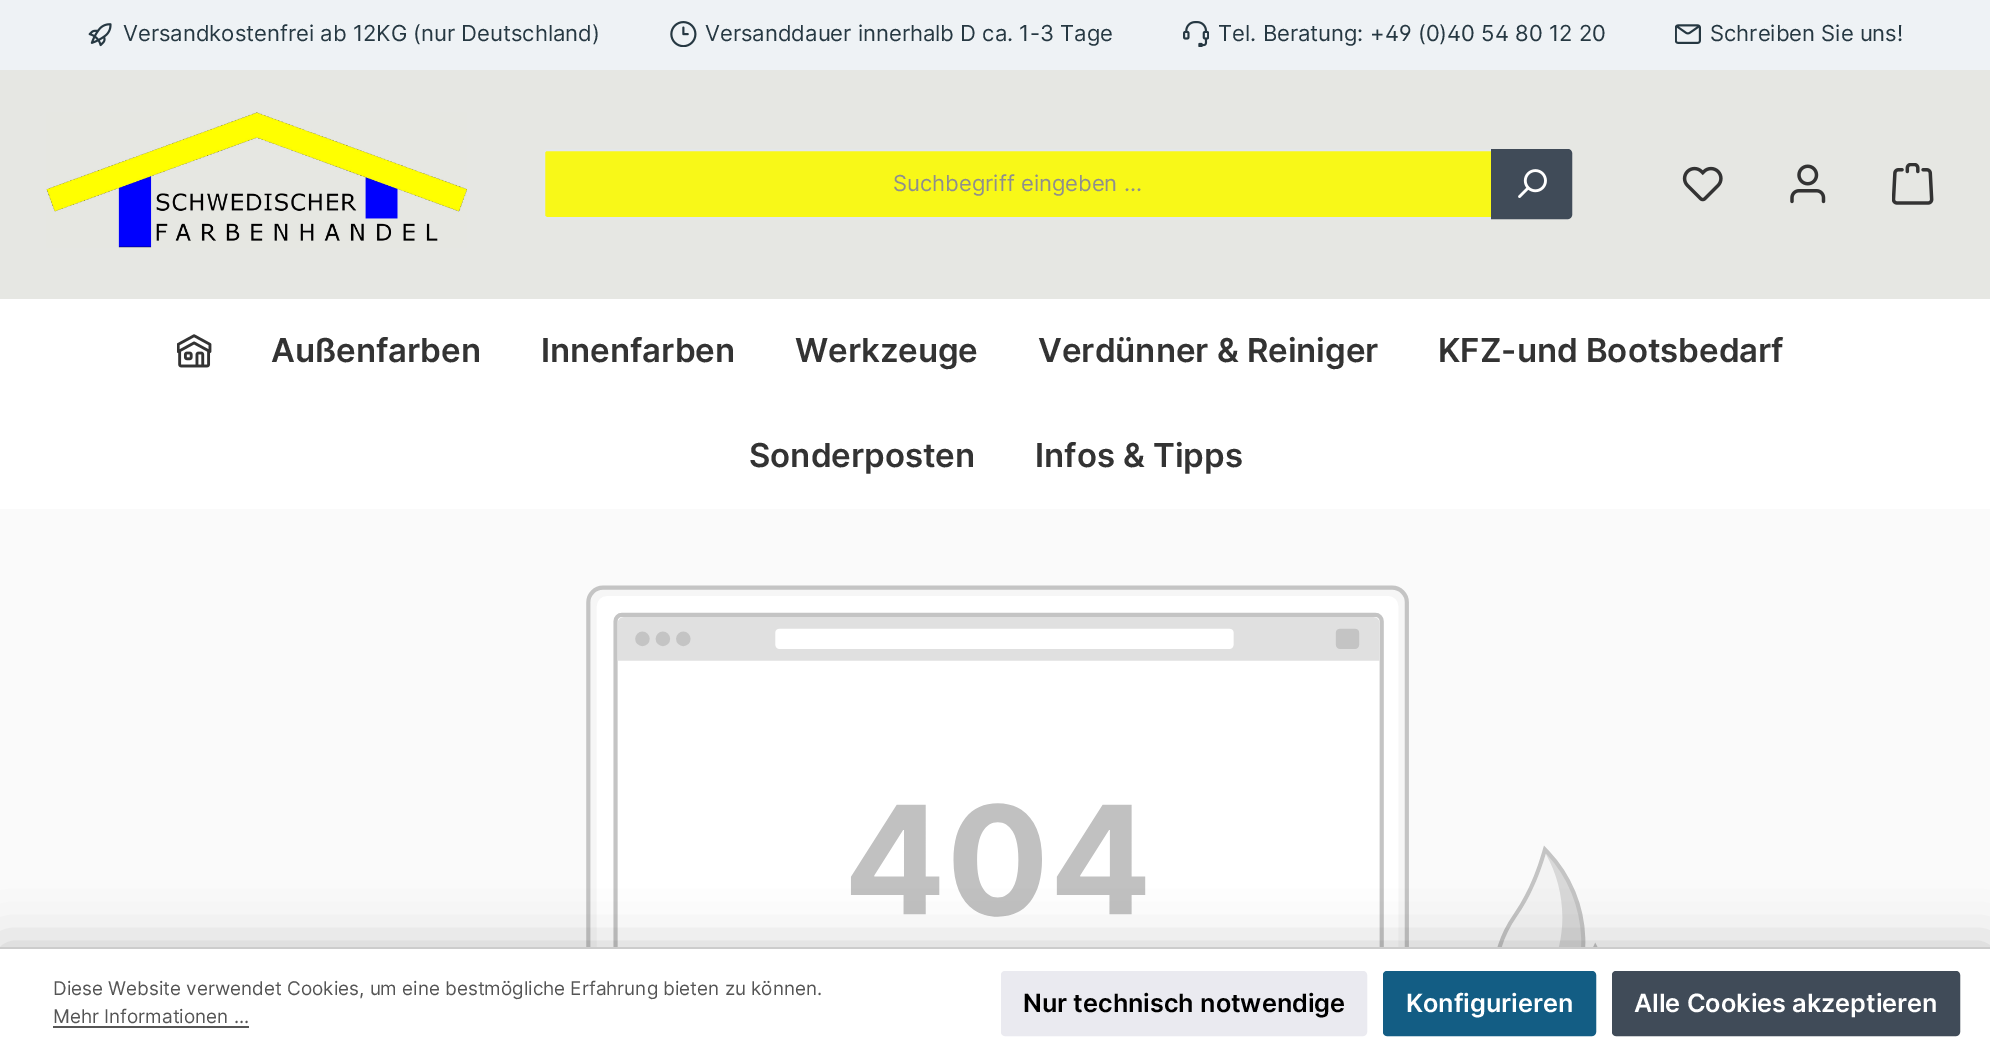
%!PS
<< /PageSize [1990 1058] /PageUsesTransparency true >> setpagedevice
/mt/moveto load def
/li/lineto load def
/ct/curveto load def
/cp/closepath load def
/fl/fill load def
/st/stroke load def
/gs/gsave load def
/gr/grestore load def
/lw/setlinewidth load def
/co { dup -16 bitshift 255 div exch dup -8 bitshift 255 and 255 div exch 255 and 255 div setrgbcolor } def
/fn { [ exch dup neg 0 0 3 -1 roll 0 0 ] selectfont } def
/tx { co fn moveto show } def
/bx { co rectfill } def
/al { dup .setfillconstantalpha .setstrokeconstantalpha } def
/rr { 5 dict begin { /r /h /w /y /x } { exch def } forall
  x r add y moveto x w add y 2 copy h add r arct x w add y h add x 1 index r arct
  x y h add x y r arct x y 2 copy exch w add exch r arct closepath end } def
/sh { 12 dict begin { /a /b /q /h /w /y /x } { exch def } forall gsave /was 0 def
  9 -2 -9 { dup b mul 4 div /e exch def 1 sub .425 mul 2.718 exch exp 1 add a .99 .min exch div /now exch def
    1 1 now sub 1 was sub div sub al /was now def
    w h .min e 2 mul add 0 gt { x e sub y e sub w e 2 mul add h e 2 mul add
      q e add b .6 mul add w h .min 2 div e add .min 0 .max rr fill } if } for grestore end } def
/im { 5 dict begin { /h /w /y /x /name } { exch def } forall
  gsave x y translate w h scale
  w h 8 [w 0 0 h 0 0] name (r) file false 3 colorimage grestore end } def
0 .pushpdf14devicefilter
0 1058 translate 1 -1 scale
4 setmiterlimit
0 0 1990 1058 16#FAFAFA bx
0 0 1990 70 16#EEF2F5 bx
(media/1.raw) 88 23 24 24 im
(media/2.raw) 670 21 27 26 im
(media/3.raw) 1183 21 26 26 im
(media/4.raw) 1675 24 26 20 im
0 70 1990 229 16#E6E7E3 bx
(media/5.raw) 46 112 421 136 im
16#F8F818 co
547 150 mt 1492 150 li 1492 218 li 547 218 li 545.5 218 544 216.5 544 215 ct 544 153 li 544 151.5 545.5 150 547 150 ct cp gs fl gr
16#E4E7EA co
2 lw
st
16#404B58 co
1492 150 mt 1568 150 li 1569.5 150 1571 151.5 1571 153 ct 1571 215 li 1571 216.5 1569.5 218 1568 218 ct 1492 218 li cp gs fl gr
st
(media/6.raw) 1518 169 29 29 im
(media/7.raw) 1682 166 41 36 im
(media/8.raw) 1790 164 36 40 im
(media/9.raw) 1892 163 42 42 im
0 299 1990 210 16#FFFFFF bx
(media/10.raw) 177 334 35 34 im
(media/11.raw) 586 585 1012 362 im
16#000000 co
0 947 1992 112 0 26 .2 sh
0 949 1990 109 16#FFFFFF bx
0 947 1990 2 16#CCCCCC bx
53 1026 196 2 16#555555 bx
16#EAEAF0 co
1002 972 364 63 3 rr gs fl gr
st
16#135D84 co
1384 972 211 63 3 rr gs fl gr
st
16#404B58 co
1613 972 346 63 3 rr gs fl gr
st
(Versandkostenfrei ab 12KG \(nur Deutschland\)) 123 41 /Inter-Regular 22.05 16#263842 tx
(Versanddauer innerhalb D ca. 1-3 Tage) 705 41 /Inter-Regular 22.05 16#263842 tx
(Tel. Beratung:) 1218 41 /Inter-Regular 22.05 16#263842 tx
(+49 \(0\)40 54 80 12 20) 1370 41 /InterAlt-Regular 22.05 16#263842 tx
(Schreiben Sie uns!) 1710 41 /Inter-Regular 22.05 16#263842 tx
(Suchbegriff eingeben ...) 893 191 /Inter-Regular 22.05 16#8E8E8E tx
(Außenfarben) 271 362 /Inter-SemiBold 33 16#333333 tx
(Innenfarben) 541 362 /Inter-SemiBold 33 16#333333 tx
(Werkzeuge) 795 362 /Inter-SemiBold 33 16#333333 tx
(Verdünner & Reiniger) 1038 362 /Inter-SemiBold 33 16#333333 tx
(KFZ-und Bootsbedarf) 1438 362 /Inter-SemiBold 33 16#333333 tx
(Sonderposten) 749 467 /Inter-SemiBold 33 16#333333 tx
(Infos & Tipps) 1035 467 /Inter-SemiBold 33 16#333333 tx
/Inter-Regular 18.9 fn
16#555555 co
53 995 mt -.1 0 32 (Diese Website verwendet Cookies, um eine bestmögliche Erfahrung bieten zu können.) widthshow
(Mehr Informationen ...) 53 1023 /Inter-Regular 18.9 16#555555 tx
(Nur technisch notwendige) 1023 1012 /Inter-SemiBold 25.25 16#000000 tx
(Konfigurieren) 1406 1012 /Inter-SemiBold 25.25 16#FFFFFF tx
(Alle Cookies akzeptieren) 1634 1012 /Inter-SemiBold 25.25 16#FFFFFF tx
.poppdf14devicefilter showpage
